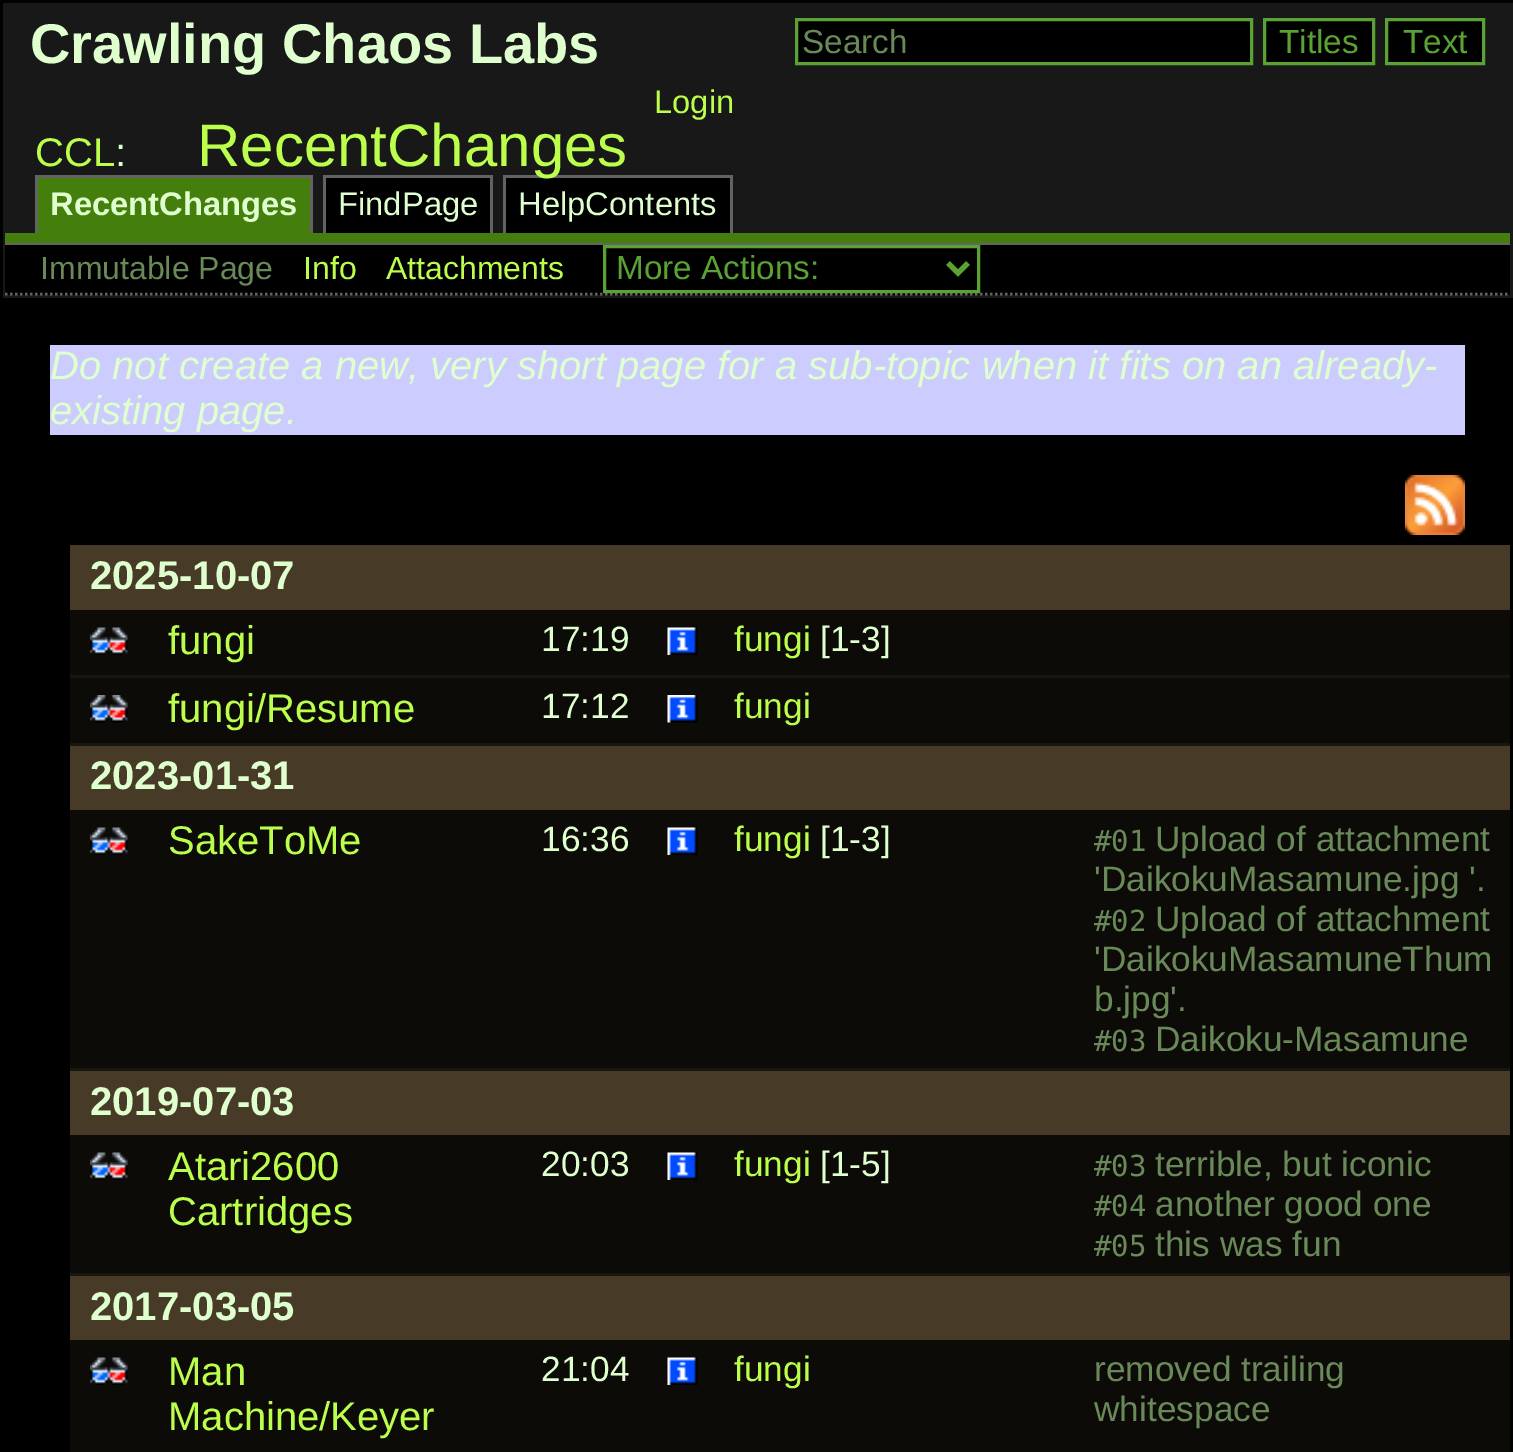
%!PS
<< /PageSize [1513 1452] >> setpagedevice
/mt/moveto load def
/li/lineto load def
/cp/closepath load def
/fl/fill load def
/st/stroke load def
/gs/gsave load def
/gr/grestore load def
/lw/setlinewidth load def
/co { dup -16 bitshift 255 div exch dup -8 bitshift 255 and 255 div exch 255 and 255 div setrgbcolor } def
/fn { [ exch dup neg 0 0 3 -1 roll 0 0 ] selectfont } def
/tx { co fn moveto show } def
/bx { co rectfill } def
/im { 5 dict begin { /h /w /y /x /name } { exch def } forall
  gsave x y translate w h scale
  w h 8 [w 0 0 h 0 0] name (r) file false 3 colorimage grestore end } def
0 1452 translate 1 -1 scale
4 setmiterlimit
0 0 1513 1452 16#000000 bx
3 3 1510 295 16#181818 bx
16#000000 co
796.5 19.5 mt 1251.5 19.5 li 1251.5 63.5 li 796.5 63.5 li cp gs fl gr
16#59A233 co
3 lw
st
16#000000 co
1264.5 19.5 mt 1373.5 19.5 li 1373.5 63.5 li 1264.5 63.5 li cp gs fl gr
16#59A233 co
st
16#000000 co
1386.5 19.5 mt 1483.5 19.5 li 1483.5 63.5 li 1386.5 63.5 li cp gs fl gr
16#59A233 co
st
38 178 272 55 16#447E0D bx
35 175 278 3 16#636363 bx
310 175 3 58 16#636363 bx
35 175 3 58 16#636363 bx
326 178 164 55 16#000000 bx
323 175 170 3 16#636363 bx
490 175 3 58 16#636363 bx
323 175 3 58 16#636363 bx
506 178 224 55 16#000000 bx
503 175 230 3 16#636363 bx
730 175 3 58 16#636363 bx
503 175 3 58 16#636363 bx
5 233 1505 10 16#447E0D bx
5 243 1505 2 16#636363 bx
5 245 1505 50 16#000000 bx
16#636363 co
2.5 lw
[2.5 2.5] 0 setdash
5 294 mt 1510 294 li st
16#59A233 co
3 lw
[] 0 setdash
604.5 246.5 374 45 rectstroke
5 lw
948 263 mt 958 273 li 968 263 li st
50 345 1415 90 16#CCCCFF bx
(media/1.raw) 1405 475 60 60 im
70 545 1440 65 16#473A26 bx
70 610 1440 65 16#0D0B08 bx
(media/2.raw) 90 627 38 28 im
(media/3.raw) 667 627 31 28 im
70 675 1440 3 16#19150F bx
70 678 1440 65 16#0D0B08 bx
(media/4.raw) 90 695 38 28 im
(media/5.raw) 667 695 31 28 im
70 743 1440 3 16#19150F bx
70 746 1440 64 16#473A26 bx
70 810 1440 258 16#0D0B08 bx
(media/2.raw) 90 827 38 28 im
(media/3.raw) 667 827 31 28 im
70 1068 1440 3 16#19150F bx
70 1071 1440 64 16#473A26 bx
70 1135 1440 138 16#0D0B08 bx
(media/6.raw) 90 1152 38 28 im
(media/7.raw) 667 1152 31 28 im
70 1273 1440 3 16#19150F bx
70 1276 1440 64 16#473A26 bx
70 1340 1440 112 16#0D0B08 bx
(media/2.raw) 90 1357 38 28 im
(media/3.raw) 667 1357 31 28 im
(Crawling Chaos Labs) 30 63 /LiberationSans-Bold 56 16#DFFFCF tx
(Search) 802 53 /LiberationSans-Regular 33.25 16#698959 tx
(Titles) 1279 53 /LiberationSans-Regular 33.25 16#59A233 tx
(Text) 1403 53 /LiberationSans-Regular 33.25 16#59A233 tx
(Login) 654 113 /LiberationSans-Regular 32.75 16#BBFF4C tx
(CCL) 35 166 /LiberationSans-Regular 40 16#BBFF4C tx
(:) 115 166 /LiberationSans-Regular 40 16#DFFFCF tx
(RecentChanges) 197 166 /LiberationSans-Regular 60 16#BBFF4C tx
(RecentChanges) 50 215 /LiberationSans-Bold 32.75 16#DFFFCF tx
(FindPage) 338 215 /LiberationSans-Regular 32.75 16#DFFFCF tx
(HelpContents) 518 215 /LiberationSans-Regular 32.75 16#DFFFCF tx
(Immutable Page) 40 279 /LiberationSans-Regular 32 16#698959 tx
(Info) 303 279 /LiberationSans-Regular 32 16#BBFF4C tx
(Attachments) 386 279 /LiberationSans-Regular 32 16#BBFF4C tx
(More Actions:) 616 279 /LiberationSans-Regular 33.25 16#59A233 tx
(Do not create a new, very short page for a sub-topic when it fits on an already-) 50 379 /LiberationSans-Italic 40 16#DFFFCF tx
(existing page.) 50 424 /LiberationSans-Italic 40 16#DFFFCF tx
(2025-10-07) 90 589 /LiberationSans-Bold 40 16#DFFFCF tx
(fungi) 168 654 /LiberationSans-Regular 40 16#BBFF4C tx
(17:19) 541 651 /LiberationSans-Regular 35.25 16#DFFFCF tx
(fungi) 734 651 /LiberationSans-Regular 35.25 16#BBFF4C tx
([1-3]) 820 651 /LiberationSans-Regular 35.25 16#DFFFCF tx
(fungi/Resume) 168 722 /LiberationSans-Regular 40 16#BBFF4C tx
(17:12) 541 718 /LiberationSans-Regular 35.25 16#DFFFCF tx
(fungi) 734 718 /LiberationSans-Regular 35.25 16#BBFF4C tx
(2023-01-31) 90 789 /LiberationSans-Bold 40 16#DFFFCF tx
(SakeToMe) 168 854 /LiberationSans-Regular 40 16#BBFF4C tx
(16:36) 541 851 /LiberationSans-Regular 35.25 16#DFFFCF tx
(fungi) 734 851 /LiberationSans-Regular 35.25 16#BBFF4C tx
([1-3]) 820 851 /LiberationSans-Regular 35.25 16#DFFFCF tx
(#01) 1094 851 /DejaVuSansMono-Regular 29 16#698959 tx
(Upload of attachment) 1155 851 /LiberationSans-Regular 35.25 16#698959 tx
('DaikokuMasamune.jpg '.) 1094 891 /LiberationSans-Regular 35.25 16#698959 tx
(#02) 1094 931 /DejaVuSansMono-Regular 29 16#698959 tx
(Upload of attachment) 1155 931 /LiberationSans-Regular 35.25 16#698959 tx
('DaikokuMasamuneThum) 1094 971 /LiberationSans-Regular 35.25 16#698959 tx
(b.jpg'.) 1094 1011 /LiberationSans-Regular 35.25 16#698959 tx
(#03) 1094 1051 /DejaVuSansMono-Regular 29 16#698959 tx
(Daikoku-Masamune) 1155 1051 /LiberationSans-Regular 35.25 16#698959 tx
(2019-07-03) 90 1115 /LiberationSans-Bold 40 16#DFFFCF tx
(Atari2600) 168 1180 /LiberationSans-Regular 40 16#BBFF4C tx
(Cartridges) 168 1225 /LiberationSans-Regular 40 16#BBFF4C tx
(20:03) 541 1176 /LiberationSans-Regular 35.25 16#DFFFCF tx
(fungi) 734 1176 /LiberationSans-Regular 35.25 16#BBFF4C tx
([1-5]) 820 1176 /LiberationSans-Regular 35.25 16#DFFFCF tx
(#03) 1094 1176 /DejaVuSansMono-Regular 29 16#698959 tx
(terrible, but iconic) 1155 1176 /LiberationSans-Regular 35.25 16#698959 tx
(#04) 1094 1216 /DejaVuSansMono-Regular 29 16#698959 tx
(another good one) 1155 1216 /LiberationSans-Regular 35.25 16#698959 tx
(#05) 1094 1256 /DejaVuSansMono-Regular 29 16#698959 tx
(this was fun) 1155 1256 /LiberationSans-Regular 35.25 16#698959 tx
(2017-03-05) 90 1320 /LiberationSans-Bold 40 16#DFFFCF tx
(Man) 168 1385 /LiberationSans-Regular 40 16#BBFF4C tx
(Machine/Keyer) 168 1430 /LiberationSans-Regular 40 16#BBFF4C tx
(21:04) 541 1381 /LiberationSans-Regular 35.25 16#DFFFCF tx
(fungi) 734 1381 /LiberationSans-Regular 35.25 16#BBFF4C tx
(removed trailing) 1094 1381 /LiberationSans-Regular 35.25 16#698959 tx
(whitespace) 1094 1421 /LiberationSans-Regular 35.25 16#698959 tx
showpage
